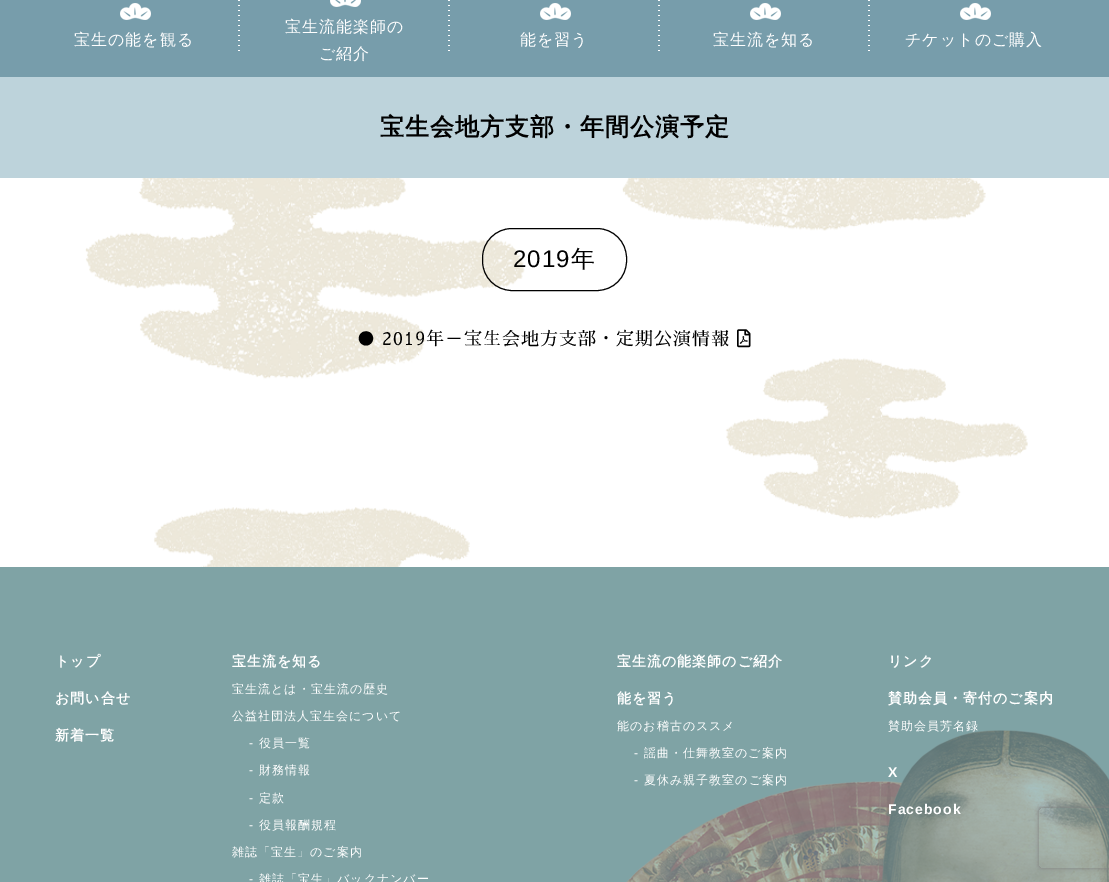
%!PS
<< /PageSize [1109 882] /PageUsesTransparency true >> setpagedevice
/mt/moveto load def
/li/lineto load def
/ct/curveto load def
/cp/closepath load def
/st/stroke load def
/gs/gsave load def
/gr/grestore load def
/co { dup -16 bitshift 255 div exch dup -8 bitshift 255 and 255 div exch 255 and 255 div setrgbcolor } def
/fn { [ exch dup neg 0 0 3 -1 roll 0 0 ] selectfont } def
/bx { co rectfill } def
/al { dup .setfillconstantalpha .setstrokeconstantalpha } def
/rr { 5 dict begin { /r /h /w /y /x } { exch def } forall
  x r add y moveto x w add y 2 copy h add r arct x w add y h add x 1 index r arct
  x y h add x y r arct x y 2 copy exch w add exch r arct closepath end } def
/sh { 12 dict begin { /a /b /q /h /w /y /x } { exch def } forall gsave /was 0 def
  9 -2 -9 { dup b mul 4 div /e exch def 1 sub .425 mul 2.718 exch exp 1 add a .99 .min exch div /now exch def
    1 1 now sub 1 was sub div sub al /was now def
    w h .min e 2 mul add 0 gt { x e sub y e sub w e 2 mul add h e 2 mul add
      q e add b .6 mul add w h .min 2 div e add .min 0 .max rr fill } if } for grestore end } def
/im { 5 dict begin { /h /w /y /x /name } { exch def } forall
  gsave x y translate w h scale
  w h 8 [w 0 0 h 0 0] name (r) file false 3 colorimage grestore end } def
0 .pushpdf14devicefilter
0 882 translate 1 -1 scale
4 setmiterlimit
0 0 1109 882 16#FFFFFF bx
0 0 1109 77 16#779DAB bx
(media/1.raw) 120 3 31 17 im
(media/2.raw) 238 0 2 51 im
(media/3.raw) 330 0 31 7 im
(media/2.raw) 448 0 2 51 im
(media/1.raw) 540 3 31 17 im
(media/2.raw) 658 0 2 51 im
(media/1.raw) 750 3 31 17 im
(media/2.raw) 868 0 2 51 im
(media/1.raw) 960 3 31 17 im
(media/4.raw) 85 178 954 389 im
0 77 1109 101 16#BDD3DB bx
16#000000 co
482.5 228.5 144 62 29.5 rr st
(media/5.raw) 737 329 14 19 im
0 567 1109 315 16#7FA3A5 bx
(media/6.raw) 626 730 483 152 im
gs
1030 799 mt 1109 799 li 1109 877 li 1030 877 li cp 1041 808 mt 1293 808 li 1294 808 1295 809 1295 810 ct 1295 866 li 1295 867 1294 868 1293 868 ct 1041 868 li 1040 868 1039 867 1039 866 ct 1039 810 li 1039 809 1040 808 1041 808 ct cp eoclip newpath
16#808080 co
1039 808 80 60 2 2.5 1 sh
gr
/WenQuanYiZenHei-Medium 16 fn
16#FFFFFF co
74 45 mt 1 0 (宝生の能を観る) ashow
285 32 mt 1 0 (宝生流能楽師の) ashow
319 59 mt 1 0 (ご紹介) ashow
520 45 mt 1 0 (能を習う) ashow
713 45 mt 1 0 (宝生流を知る) ashow
905 45 mt 1 0 (チケットのご購入) ashow
/WenQuanYiZenHei-Bold 24 fn
16#000000 co
380 135 mt 1 0 (宝生会地方支部・年間公演予定) ashow
/LiberationSans-Regular 24 fn
513 267 mt 1 0 (2019) ashow
/WenQuanYiZenHei-Medium 24 fn
571 267 mt 1 0 (年) ashow
/SawarabiMincho-Regular 18 fn
357 345 mt 1 0 (● 2019年－宝生会地方支部・定期公演情報) ashow
/WenQuanYiZenHei-Bold 14 fn
16#FFFFFF co
55 666 mt 1 0 (トップ) ashow
55 703 mt 1 0 (お問い合せ) ashow
55 740 mt 1 0 (新着一覧) ashow
232 666 mt 1 0 (宝生流を知る) ashow
/WenQuanYiZenHei-Medium 12 fn
232 693 mt 1 0 (宝生流とは・宝生流の歴史) ashow
232 720 mt 1 0 (公益社団法人宝生会について) ashow
/LiberationSans-Regular 12 fn
249 747 mt 1 0 (-) ashow
/WenQuanYiZenHei-Medium 12 fn
259 747 mt 1 0 (役員一覧) ashow
/LiberationSans-Regular 12 fn
249 774 mt 1 0 (-) ashow
/WenQuanYiZenHei-Medium 12 fn
259 774 mt 1 0 (財務情報) ashow
/LiberationSans-Regular 12 fn
249 802 mt 1 0 (-) ashow
/WenQuanYiZenHei-Medium 12 fn
259 802 mt 1 0 (定款) ashow
/LiberationSans-Regular 12 fn
249 829 mt 1 0 (-) ashow
/WenQuanYiZenHei-Medium 12 fn
259 829 mt 1 0 (役員報酬規程) ashow
232 856 mt 1 0 (雑誌「宝生」のご案内) ashow
/LiberationSans-Regular 12 fn
249 883 mt 1 0 (-) ashow
/WenQuanYiZenHei-Medium 12 fn
259 883 mt 1 0 (雑誌「宝生」バックナンバー) ashow
/WenQuanYiZenHei-Bold 14 fn
617 666 mt 1 0 (宝生流の能楽師のご紹介) ashow
617 703 mt 1 0 (能を習う) ashow
/WenQuanYiZenHei-Medium 12 fn
617 730 mt 1 0 (能のお稽古のススメ) ashow
/LiberationSans-Regular 12 fn
634 757 mt 1 0 (-) ashow
/WenQuanYiZenHei-Medium 12 fn
644 757 mt 1 0 (謡曲・仕舞教室のご案内) ashow
/LiberationSans-Regular 12 fn
634 784 mt 1 0 (-) ashow
/WenQuanYiZenHei-Medium 12 fn
644 784 mt 1 0 (夏休み親子教室のご案内) ashow
/WenQuanYiZenHei-Bold 14 fn
888 666 mt 1 0 (リンク) ashow
888 703 mt 1 0 (賛助会員・寄付のご案内) ashow
/WenQuanYiZenHei-Medium 12 fn
888 730 mt 1 0 (賛助会員芳名録) ashow
/LiberationSans-Bold 14 fn
888 777 mt 1 0 (X) ashow
888 814 mt 1 0 (Facebook) ashow
.poppdf14devicefilter showpage
